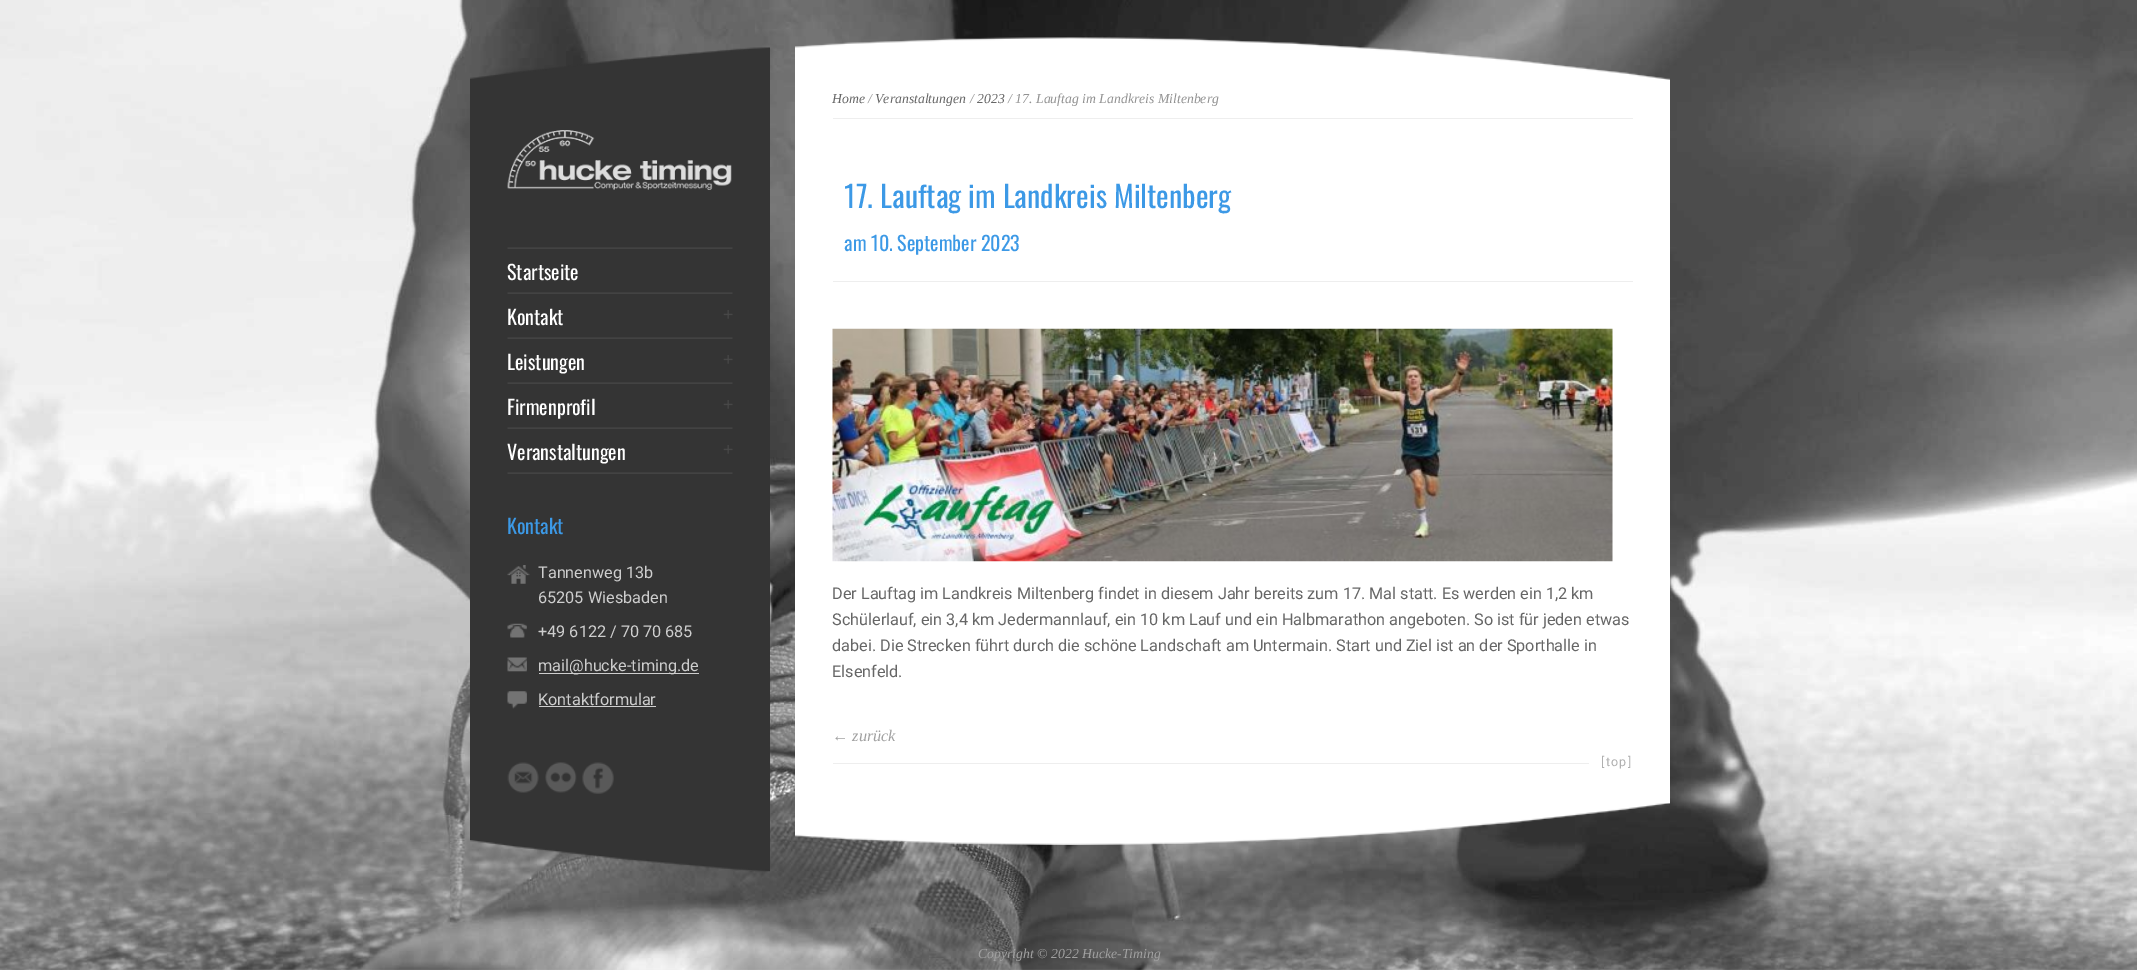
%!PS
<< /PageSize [2137 970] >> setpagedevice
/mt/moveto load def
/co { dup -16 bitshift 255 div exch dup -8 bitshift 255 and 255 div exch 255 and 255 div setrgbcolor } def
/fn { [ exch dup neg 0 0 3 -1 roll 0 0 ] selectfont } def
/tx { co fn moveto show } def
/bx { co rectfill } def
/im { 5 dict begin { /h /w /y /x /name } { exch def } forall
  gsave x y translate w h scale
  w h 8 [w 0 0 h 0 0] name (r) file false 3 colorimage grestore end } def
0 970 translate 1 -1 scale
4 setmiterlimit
0 0 2137 970 16#FFFFFF bx
(media/1.raw) 0 0 2137 970 im
(media/2.raw) 470 47 300 33 im
470 80 300 760 16#343434 bx
(media/3.raw) 507 130 225 60 im
(media/4.raw) 507 247 226 2 im
(media/4.raw) 507 292 226 2 im
(media/4.raw) 507 337 226 2 im
(media/5.raw) 723 310 10 9 im
(media/4.raw) 507 382 226 2 im
(media/5.raw) 723 355 10 9 im
(media/4.raw) 507 427 226 2 im
(media/5.raw) 723 400 10 9 im
(media/4.raw) 507 472 226 2 im
(media/5.raw) 723 445 10 9 im
(media/6.raw) 507 565 23 19 im
(media/7.raw) 507 623 20 15 im
(media/8.raw) 507 657 20 15 im
539 673 160 1 16#CECECE bx
(media/9.raw) 507 691 20 18 im
539 706 117 1 16#CECECE bx
(media/10.raw) 507 762 32 31 im
(media/11.raw) 545 762 32 31 im
(media/12.raw) 582 762 32 32 im
(media/13.raw) 470 840 300 32 im
(media/14.raw) 795 37 875 43 im
795 80 875 723 16#FFFFFF bx
833 118 800 1 16#EEEEEE bx
833 281 800 1 16#EEEEEE bx
(media/15.raw) 832 328 781 234 im
833 763 756 1 16#EEEEEE bx
(media/16.raw) 795 803 875 42 im
(Startseite) 507 280 /Oswald-Regular 20 16#FFFFFF tx
(Kontakt) 507 325 /Oswald-Regular 20 16#FFFFFF tx
(Leistungen) 507 370 /Oswald-Regular 20 16#FFFFFF tx
(Firmenprofil) 507 415 /Oswald-Regular 20 16#FFFFFF tx
(Veranstaltungen) 507 460 /Oswald-Regular 20 16#FFFFFF tx
(Kontakt) 507 534 /Oswald-Regular 20 16#3C99E6 tx
(Tannenweg 13b) 538 578 /Roboto-Regular 16.25 16#CECECE tx
(65205 Wiesbaden) 538 603 /Roboto-Regular 16.25 16#CECECE tx
(+49 6122 / 70 70 685) 538 637 /Roboto-Regular 16.25 16#CECECE tx
(mail@hucke-timing.de) 538 671 /Roboto-Regular 16.25 16#CECECE tx
(Kontaktformular) 538 705 /Roboto-Regular 16.25 16#CECECE tx
(Home) 832 103 /LiberationSerif-Italic 13.75 16#666666 tx
(/) 868 103 /LiberationSerif-Italic 13.75 16#929292 tx
(Veranstaltungen) 875 103 /LiberationSerif-Italic 13.75 16#666666 tx
(/) 970 103 /LiberationSerif-Italic 13.75 16#929292 tx
(2023) 977 103 /LiberationSerif-Italic 13.75 16#666666 tx
(/ 17. Lauftag im Landkreis Miltenberg) 1008 103 /LiberationSerif-Italic 13.75 16#929292 tx
(17. Lauftag im Landkreis Miltenberg) 844 208 /Oswald-Regular 30 16#3C99E6 tx
(am 10. September 2023) 844 251 /Oswald-Regular 20 16#3C99E6 tx
(Der Lauftag im Landkreis Miltenberg findet in diesem Jahr bereits zum 17. Mal statt. Es werden ein 1,2 km) 832 599 /Roboto-Regular 16.25 16#666666 tx
(Schülerlauf, ein 3,4 km Jedermannlauf, ein 10 km Lauf und ein Halbmarathon angeboten. So ist für jeden etwas) 832 625 /Roboto-Regular 16.25 16#666666 tx
(dabei. Die Strecken führt durch die schöne Landschaft am Untermain. Start und Ziel ist an der Sporthalle in) 832 651 /Roboto-Regular 16.25 16#666666 tx
(Elsenfeld.) 832 677 /Roboto-Regular 16.25 16#666666 tx
(← zurück) 832 741 /LiberationSerif-Italic 16.25 16#A1A1A1 tx
/Roboto-Regular 12.5 fn
16#B0B0B0 co
1601 766 mt 1.25 0 ([top]) ashow
(Copyright © 2022 Hucke-Timing) 978 958 /LiberationSerif-Italic 13.75 16#A1A1A1 tx
showpage
